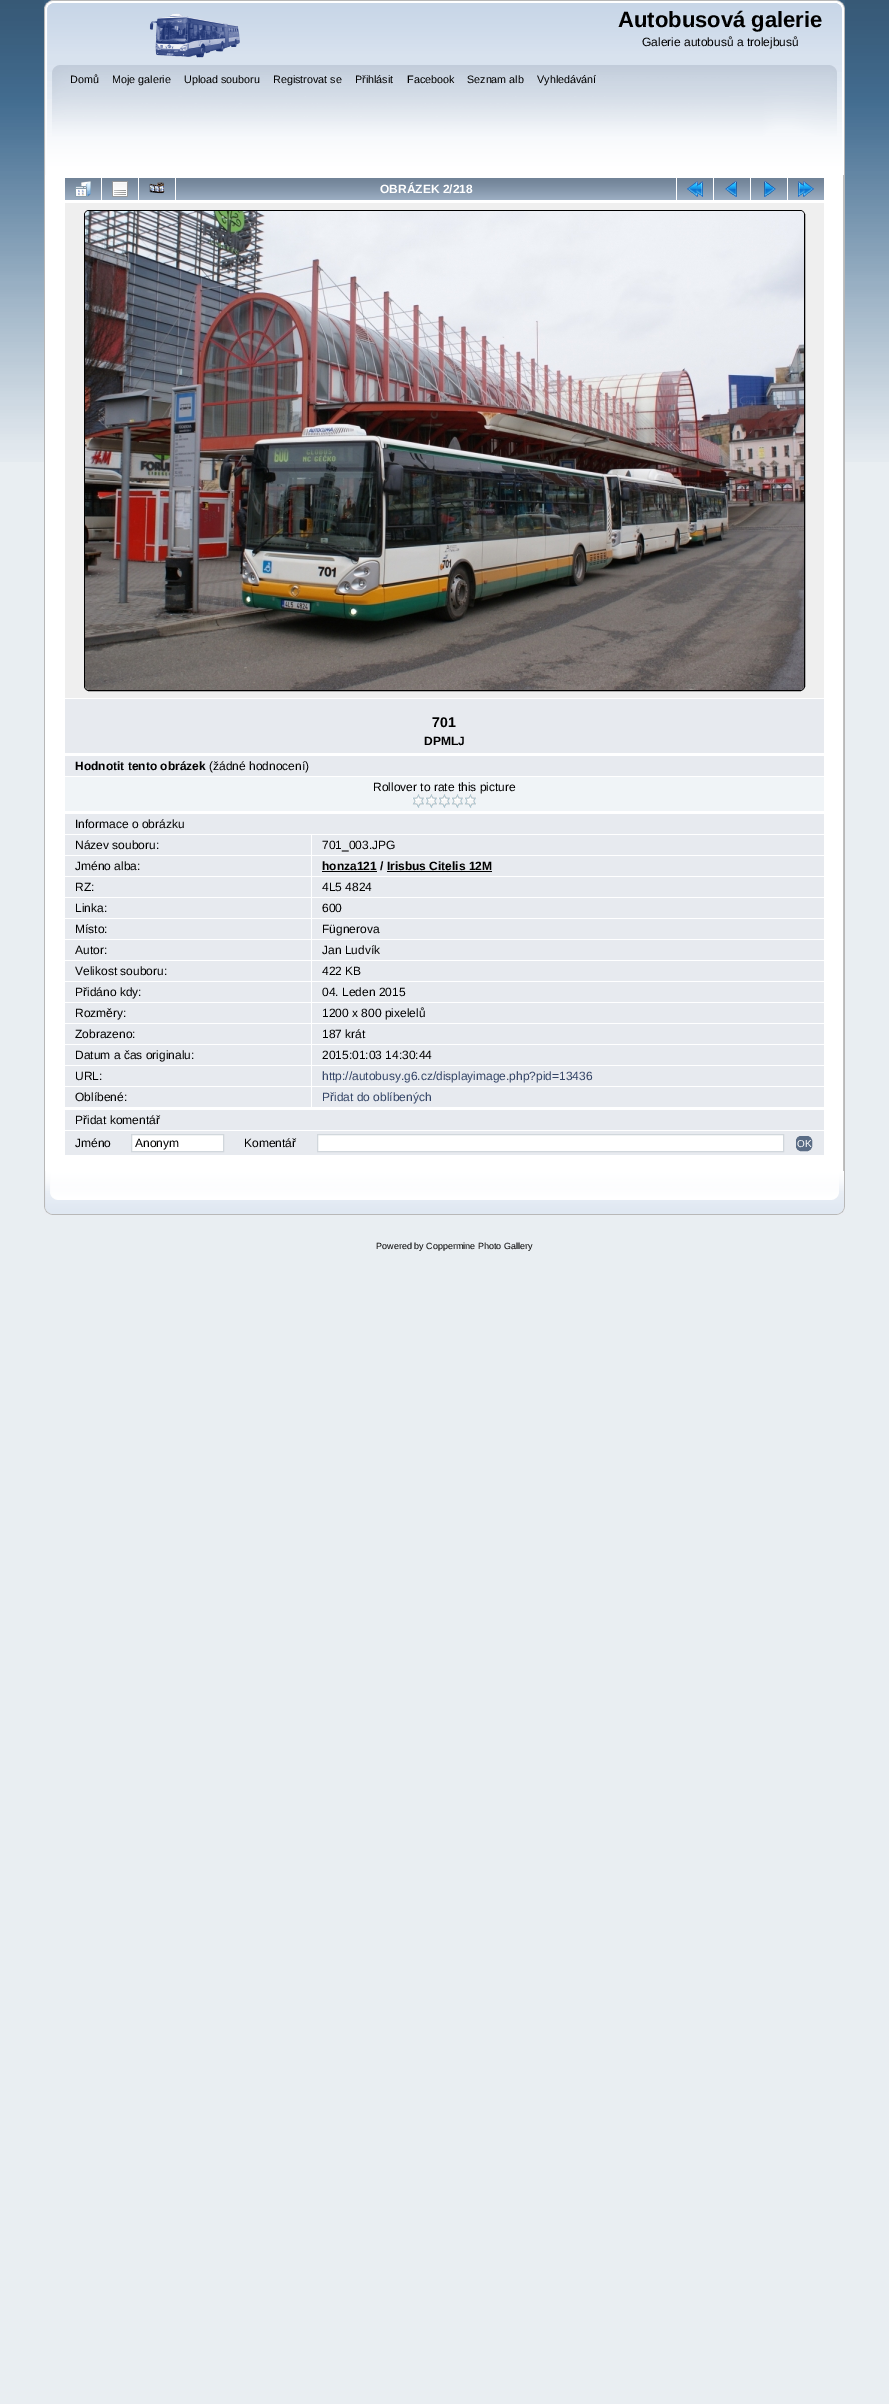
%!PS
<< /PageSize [889 2404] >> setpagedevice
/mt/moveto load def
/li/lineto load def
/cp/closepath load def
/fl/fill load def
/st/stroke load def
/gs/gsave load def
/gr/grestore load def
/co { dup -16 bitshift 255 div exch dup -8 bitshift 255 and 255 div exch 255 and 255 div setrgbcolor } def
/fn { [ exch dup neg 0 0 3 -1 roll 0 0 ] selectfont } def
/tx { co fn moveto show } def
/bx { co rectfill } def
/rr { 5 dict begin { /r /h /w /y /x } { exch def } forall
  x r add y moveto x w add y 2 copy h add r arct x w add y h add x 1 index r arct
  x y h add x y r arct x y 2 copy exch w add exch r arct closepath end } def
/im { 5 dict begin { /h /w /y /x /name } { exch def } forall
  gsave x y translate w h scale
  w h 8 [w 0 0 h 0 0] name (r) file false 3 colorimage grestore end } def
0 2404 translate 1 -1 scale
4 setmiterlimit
0 0 889 2404 16#E9EEF2 bx
(media/1.raw) 0 0 889 462 im
(media/2.raw) 44 0 793 65 im
(media/3.raw) 837 0 8 65 im
(media/4.raw) 149 13 91 45 im
(media/5.raw) 44 65 786 110 im
(media/6.raw) 830 65 15 110 im
45 175 798 996 16#FFFFFF bx
44 175 1 996 16#B7B7B7 bx
(media/7.raw) 843 175 2 996 im
(media/8.raw) 65 178 36 22 im
(media/9.raw) 75 181 16 16 im
(media/8.raw) 102 178 36 22 im
(media/10.raw) 112 181 16 16 im
(media/8.raw) 139 178 36 22 im
(media/11.raw) 149 182 16 12 im
(media/12.raw) 176 178 500 22 im
(media/8.raw) 677 178 36 22 im
(media/13.raw) 687 181 16 16 im
(media/8.raw) 714 178 36 22 im
(media/14.raw) 725 181 12 16 im
(media/8.raw) 751 178 36 22 im
(media/15.raw) 764 181 12 16 im
(media/8.raw) 788 178 36 22 im
(media/16.raw) 798 181 16 16 im
65 203 759 495 16#EFEFEF bx
16#000000 co
84.5 210.5 720 480 4.5 rr st
(media/17.raw) 85 211 719 479 im
65 699 759 54 16#E7EAEF bx
65 756 759 20 16#E7EAEF bx
65 777 759 34 16#F0F4F7 bx
(media/18.raw) 412 794 13 14 im
(media/18.raw) 425 794 13 14 im
(media/18.raw) 438 794 13 14 im
(media/18.raw) 451 794 13 14 im
(media/18.raw) 464 794 13 14 im
65 814 759 20 16#E7EAEF bx
65 835 246 20 16#E7EAEF bx
312 835 512 20 16#E7EAEF bx
65 856 246 20 16#E7EAEF bx
312 856 512 20 16#E7EAEF bx
322 871 55 1 16#000000 bx
387 871 105 1 16#000000 bx
65 877 246 20 16#E7EAEF bx
312 877 512 20 16#E7EAEF bx
65 898 246 20 16#E7EAEF bx
312 898 512 20 16#E7EAEF bx
65 919 246 20 16#E7EAEF bx
312 919 512 20 16#E7EAEF bx
65 940 246 20 16#E7EAEF bx
312 940 512 20 16#E7EAEF bx
65 961 246 20 16#E7EAEF bx
312 961 512 20 16#E7EAEF bx
65 982 246 20 16#E7EAEF bx
312 982 512 20 16#E7EAEF bx
65 1003 246 20 16#E7EAEF bx
312 1003 512 20 16#E7EAEF bx
65 1024 246 20 16#E7EAEF bx
312 1024 512 20 16#E7EAEF bx
65 1045 246 20 16#E7EAEF bx
312 1045 512 20 16#E7EAEF bx
65 1066 246 20 16#E7EAEF bx
312 1066 512 20 16#E7EAEF bx
65 1087 246 20 16#E7EAEF bx
312 1087 512 20 16#E7EAEF bx
65 1110 759 20 16#E7EAEF bx
65 1131 759 24 16#E7EAEF bx
16#FFFFFF co
131.5 1134.5 mt 223.5 1134.5 li 223.5 1151.5 li 131.5 1151.5 li cp gs fl gr
16#D1D7DC co
st
16#FFFFFF co
317.5 1134.5 mt 783.5 1134.5 li 783.5 1151.5 li 317.5 1151.5 li cp gs fl gr
16#D1D7DC co
st
16#5A6C85 co
796.5 1136.5 15 14 4.5 rr gs fl gr
st
(media/19.raw) 44 1171 788 44 im
(media/20.raw) 832 1171 13 44 im
(Autobusová galerie) 618 27 /LiberationSans-Bold 22 16#000000 tx
(Galerie autobusů a trolejbusů) 642 46 /LiberationSans-Regular 12 16#000000 tx
(Domů) 70 83 /LiberationSans-Regular 10.75 16#000000 tx
(Moje galerie) 112 83 /LiberationSans-Regular 10.75 16#000000 tx
(Upload souboru) 184 83 /LiberationSans-Regular 10.75 16#000000 tx
(Registrovat se) 273 83 /LiberationSans-Regular 10.75 16#000000 tx
(Přihlásit) 355 83 /LiberationSans-Regular 10.75 16#000000 tx
(Facebook) 407 83 /LiberationSans-Regular 10.75 16#000000 tx
(Seznam alb) 467 83 /LiberationSans-Regular 10.75 16#000000 tx
(Vyhledávání) 537 83 /LiberationSans-Regular 10.75 16#000000 tx
(OBRÁZEK 2/218) 380 193 /LiberationSans-Bold 12 16#FFFFFF tx
(701) 432 727 /LiberationSans-Bold 14 16#000000 tx
(DPMLJ) 424 745 /LiberationSans-Bold 12 16#000000 tx
(Hodnotit tento obrázek) 75 770 /LiberationSans-Bold 12 16#000000 tx
(\(žádné hodnocení\)) 209 770 /LiberationSans-Regular 12 16#000000 tx
(Rollover to rate this picture) 373 791 /LiberationSans-Regular 12 16#000000 tx
(Informace o obrázku) 75 828 /LiberationSans-Regular 12 16#000000 tx
(Název souboru:) 75 849 /LiberationSans-Regular 12 16#000000 tx
(701_003.JPG) 322 849 /LiberationSans-Regular 12 16#000000 tx
(Jméno alba:) 75 870 /LiberationSans-Regular 12 16#000000 tx
(honza121 / Irisbus Citelis 12M) 322 870 /LiberationSans-Bold 12 16#000000 tx
(RZ:) 75 891 /LiberationSans-Regular 12 16#000000 tx
(4L5 4824) 322 891 /LiberationSans-Regular 12 16#000000 tx
(Linka:) 75 912 /LiberationSans-Regular 12 16#000000 tx
(600) 322 912 /LiberationSans-Regular 12 16#000000 tx
(Místo:) 75 933 /LiberationSans-Regular 12 16#000000 tx
(Fügnerova) 322 933 /LiberationSans-Regular 12 16#000000 tx
(Autor:) 75 954 /LiberationSans-Regular 12 16#000000 tx
(Jan Ludvík) 322 954 /LiberationSans-Regular 12 16#000000 tx
(Velikost souboru:) 75 975 /LiberationSans-Regular 12 16#000000 tx
(422 KB) 322 975 /LiberationSans-Regular 12 16#000000 tx
(Přidáno kdy:) 75 996 /LiberationSans-Regular 12 16#000000 tx
(04. Leden 2015) 322 996 /LiberationSans-Regular 12 16#000000 tx
(Rozměry:) 75 1017 /LiberationSans-Regular 12 16#000000 tx
(1200 x 800 pixelelů) 322 1017 /LiberationSans-Regular 12 16#000000 tx
(Zobrazeno:) 75 1038 /LiberationSans-Regular 12 16#000000 tx
(187 krát) 322 1038 /LiberationSans-Regular 12 16#000000 tx
(Datum a čas originalu:) 75 1059 /LiberationSans-Regular 12 16#000000 tx
(2015:01:03 14:30:44) 322 1059 /LiberationSans-Regular 12 16#000000 tx
(URL:) 75 1080 /LiberationSans-Regular 12 16#000000 tx
(http://autobusy.g6.cz/displayimage.php?pid=13436) 322 1080 /LiberationSans-Regular 12 16#334466 tx
(Oblíbené:) 75 1101 /LiberationSans-Regular 12 16#000000 tx
(Přidat do oblíbených) 322 1101 /LiberationSans-Regular 12 16#334466 tx
(Přidat komentář) 75 1124 /LiberationSans-Regular 12 16#000000 tx
(Jméno) 75 1147 /LiberationSans-Regular 12 16#000000 tx
(Anonym) 135 1147 /LiberationSans-Regular 12 16#000000 tx
(Komentář) 244 1147 /LiberationSans-Regular 12 16#000000 tx
(OK) 797 1147 /LiberationSans-Regular 10 16#FFFFFF tx
(Powered by Coppermine Photo Gallery) 376 1249 /LiberationSans-Regular 9 16#000000 tx
showpage
